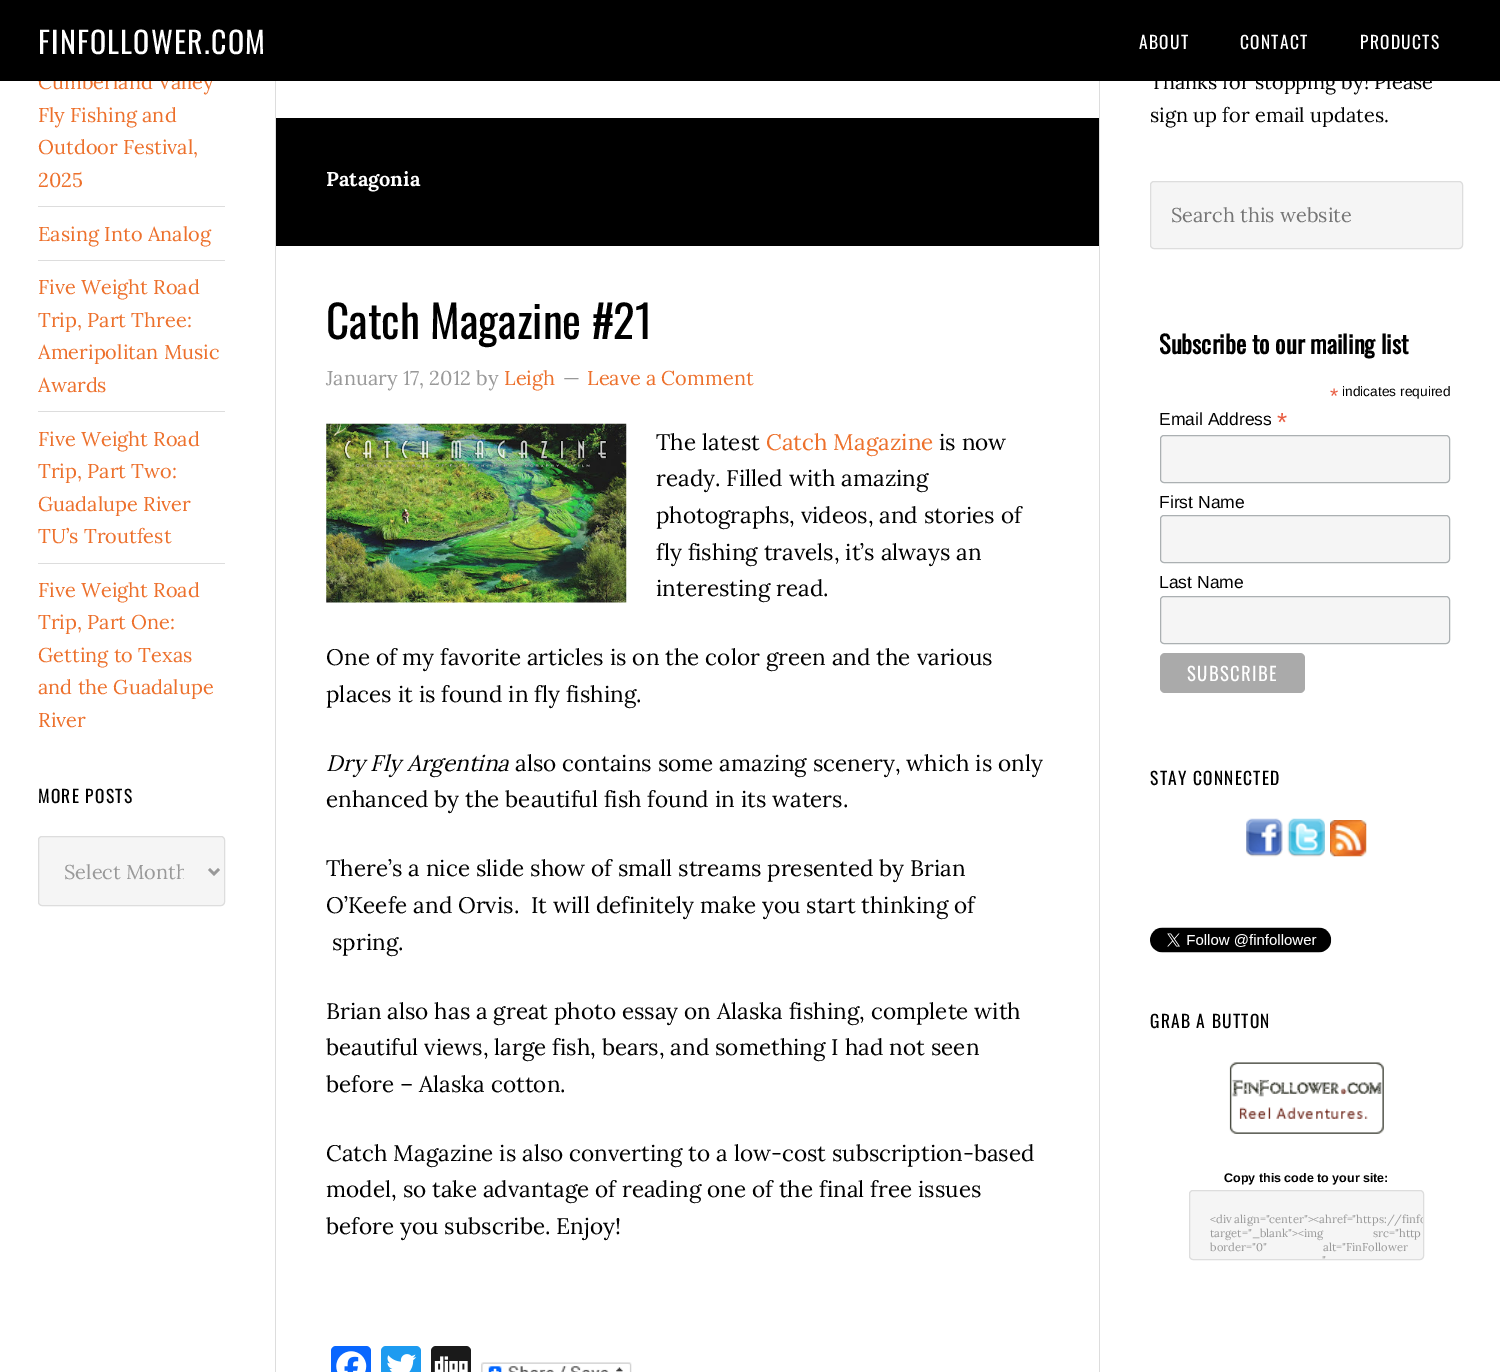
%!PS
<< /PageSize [1500 1372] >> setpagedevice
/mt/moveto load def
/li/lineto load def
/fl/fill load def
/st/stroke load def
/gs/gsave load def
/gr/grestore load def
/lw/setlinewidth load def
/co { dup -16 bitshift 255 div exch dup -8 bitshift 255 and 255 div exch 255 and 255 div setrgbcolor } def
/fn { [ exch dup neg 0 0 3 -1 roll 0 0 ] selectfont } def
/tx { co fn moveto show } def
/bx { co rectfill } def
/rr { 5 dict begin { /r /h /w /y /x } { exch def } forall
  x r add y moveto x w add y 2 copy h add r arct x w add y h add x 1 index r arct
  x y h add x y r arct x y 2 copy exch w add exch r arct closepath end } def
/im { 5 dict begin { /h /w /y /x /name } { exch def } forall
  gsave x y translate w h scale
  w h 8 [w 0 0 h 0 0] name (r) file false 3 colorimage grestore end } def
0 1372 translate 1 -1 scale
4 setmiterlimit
0 0 1500 1372 16#FFFFFF bx
38 206 187 1 16#DDDDDD bx
38 260 187 1 16#DDDDDD bx
38 411 187 1 16#DDDDDD bx
38 563 187 1 16#DDDDDD bx
16#F5F5F5 co
38.5 836.5 186 69 3.5 rr gs fl gr
16#DDDDDD co
st
16#999999 co
2.5 lw
209 869 mt 214 874 li 219 869 li st
1099 81 1 1291 16#DDDDDD bx
275 81 1 1291 16#DDDDDD bx
276 118 823 128 16#000000 bx
(media/1.raw) 326 423 301 180 im
16#0866FF co
331 1346 40 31 5 rr fl
(media/2.raw) 336 1351 31 21 im
16#1D9BF0 co
381 1346 40 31 5 rr fl
(media/3.raw) 387 1354 30 18 im
16#1A1A1A co
431 1346 40 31 5 rr fl
(media/4.raw) 434 1356 34 16 im
(media/5.raw) 481 1362 151 10 im
16#F5F5F5 co
1150.5 181.5 312 67 3.5 rr gs fl gr
16#DDDDDD co
1 lw
st
16#F5F5F5 co
1160.5 435.5 289 47 3.5 rr gs fl gr
16#ABB0B2 co
st
16#F5F5F5 co
1160.5 515.5 289 47 3.5 rr gs fl gr
16#ABB0B2 co
st
16#F5F5F5 co
1160.5 596.5 289 47 3.5 rr gs fl gr
16#ABB0B2 co
st
16#AAAAAA co
1160 653 145 40 5 rr fl
(media/6.raw) 1246 818 37 39 im
(media/7.raw) 1287 818 38 39 im
(media/8.raw) 1330 820 37 37 im
(media/9.raw) 1150 927 182 26 im
(media/10.raw) 1229 1062 155 72 im
16#F5F5F5 co
1189.5 1190.5 234 69 3.5 rr gs fl gr
16#DDDDDD co
st
(Cumberland Valley) 38 89 /Lora-Regular 20 16#ED702B tx
0 0 1500 81 16#000000 bx
/Oswald-Regular 17.5 fn
16#FFFFFF co
1360 49 mt 1.25 0 (PRODUCTS) ashow
1240 49 mt 1.25 0 (CONTACT) ashow
1139 49 mt 1.25 0 (ABOUT) ashow
/Oswald-Regular 30 fn
38 54 mt 1.25 0 (FINFOLLOWER.COM) ashow
(Fly Fishing and) 38 122 /Lora-Regular 20 16#ED702B tx
(Outdoor Festival,) 38 154 /Lora-Regular 20 16#ED702B tx
(2025) 38 187 /Lora-Regular 20 16#ED702B tx
(Easing Into Analog) 38 241 /Lora-Regular 20 16#ED702B tx
(Five Weight Road) 38 294 /Lora-Regular 20 16#ED702B tx
(Trip, Part Three:) 38 327 /Lora-Regular 20 16#ED702B tx
(Ameripolitan Music) 38 359 /Lora-Regular 20 16#ED702B tx
(Awards) 38 392 /Lora-Regular 20 16#ED702B tx
(Five Weight Road) 38 446 /Lora-Regular 20 16#ED702B tx
(Trip, Part Two:) 38 478 /Lora-Regular 20 16#ED702B tx
(Guadalupe River) 38 511 /Lora-Regular 20 16#ED702B tx
(TU’s Troutfest) 38 543 /Lora-Regular 20 16#ED702B tx
(Five Weight Road) 38 597 /Lora-Regular 20 16#ED702B tx
(Trip, Part One:) 38 629 /Lora-Regular 20 16#ED702B tx
(Getting to Texas) 38 662 /Lora-Regular 20 16#ED702B tx
(and the Guadalupe) 38 694 /Lora-Regular 20 16#ED702B tx
(River) 38 727 /Lora-Regular 20 16#ED702B tx
/Oswald-Regular 17.5 fn
16#000000 co
38 803 mt 1.25 0 (MORE POSTS) ashow
gs
64 858 120 27 rectclip
(Select Month) 64 879 /Lora-Regular 20 16#999999 tx
gr
(Patagonia) 326 186 /Lora-Bold 20 16#FFFFFF tx
(Catch Magazine #21) 326 339 /Oswald-Regular 45 16#000000 tx
(January 17, 2012 by) 326 385 /Lora-Regular 20 16#999999 tx
(Leigh) 504 385 /Lora-Regular 20 16#ED702B tx
(—) 563 385 /Lora-Regular 20 16#999999 tx
(Leave a Comment) 587 385 /Lora-Regular 20 16#ED702B tx
(The latest) 656 450 /Lora-Regular 22.5 16#000000 tx
(Catch Magazine) 766 450 /Lora-Regular 22.5 16#ED702B tx
(is now) 939 450 /Lora-Regular 22.5 16#000000 tx
(ready. Filled with amazing) 656 486 /Lora-Regular 22.5 16#000000 tx
(photographs, videos, and stories of) 656 523 /Lora-Regular 22.5 16#000000 tx
(fly fishing travels, it’s always an) 656 560 /Lora-Regular 22.5 16#000000 tx
(interesting read.) 656 596 /Lora-Regular 22.5 16#000000 tx
(One of my favorite articles is on the color green and the various) 326 665 /Lora-Regular 22.5 16#000000 tx
(places it is found in fly fishing.) 326 702 /Lora-Regular 22.5 16#000000 tx
(Dry Fly Argentina) 326 771 /Lora-Italic 22.5 16#000000 tx
(also contains some amazing scenery, which is only) 515 771 /Lora-Regular 22.5 16#000000 tx
(enhanced by the beautiful fish found in its waters.) 326 807 /Lora-Regular 22.5 16#000000 tx
(There’s a nice slide show of small streams presented by Brian) 326 876 /Lora-Regular 22.5 16#000000 tx
(O’Keefe and Orvis.  It will definitely make you start thinking of) 326 913 /Lora-Regular 22.5 16#000000 tx
(spring.) 332 950 /Lora-Regular 22.5 16#000000 tx
(Brian also has a great photo essay on Alaska fishing, complete with) 326 1019 /Lora-Regular 22.5 16#000000 tx
(beautiful views, large fish, bears, and something I had not seen) 326 1055 /Lora-Regular 22.5 16#000000 tx
(before – Alaska cotton.) 326 1092 /Lora-Regular 22.5 16#000000 tx
(Catch Magazine is also converting to a low-cost subscription-based) 326 1161 /Lora-Regular 22.5 16#000000 tx
(model, so take advantage of reading one of the final free issues) 326 1197 /Lora-Regular 22.5 16#000000 tx
(before you subscribe. Enjoy!) 326 1234 /Lora-Regular 22.5 16#000000 tx
(Thanks for stopping by! Please) 1150 89 /Lora-Regular 20 16#000000 tx
(sign up for email updates.) 1150 122 /Lora-Regular 20 16#000000 tx
(Search this website) 1171 222 /Lora-Regular 20 16#757575 tx
(Subscribe to our mailing list) 1159 354 /Oswald-Bold 24.5 16#000000 tx
(*) 1330 403 /LiberationSans-Regular 21 16#E85C41 tx
(indicates required) 1342 396 /LiberationSans-Regular 13.75 16#000000 tx
(Email Address) 1159 425 /LiberationSans-Regular 17.5 16#000000 tx
(*) 1277 431 /LiberationSans-Regular 26 16#E85C41 tx
(First Name) 1159 508 /LiberationSans-Regular 17.5 16#000000 tx
(Last Name) 1159 588 /LiberationSans-Regular 17.5 16#000000 tx
/Oswald-Regular 18.75 fn
16#FFFFFF co
1187 681 mt 1.25 0 (SUBSCRIBE) ashow
/Oswald-Regular 17.5 fn
16#000000 co
1150 785 mt 1.25 0 (STAY CONNECTED) ashow
1150 1028 mt 1.25 0 (GRAB A BUTTON) ashow
(Copy this code to your site:) 1224 1182 /LiberationSans-Bold 12.5 16#000000 tx
(<div align="center"><a) 1210 1223 /Lora-Regular 11.25 16#999999 tx
gs
1190 1191 233 68 2.5 rr clip newpath
(href="https://finfo) 1325 1223 /Lora-Regular 11.25 16#999999 tx
gr
(target="_blank"><img) 1210 1237 /Lora-Regular 11.25 16#999999 tx
(src="http) 1373 1237 /Lora-Regular 11.25 16#999999 tx
(border="0") 1210 1251 /Lora-Regular 11.25 16#999999 tx
(alt="FinFollower) 1323 1251 /Lora-Regular 11.25 16#999999 tx
1322 1264 mt 4 0 32 (") widthshow
showpage
